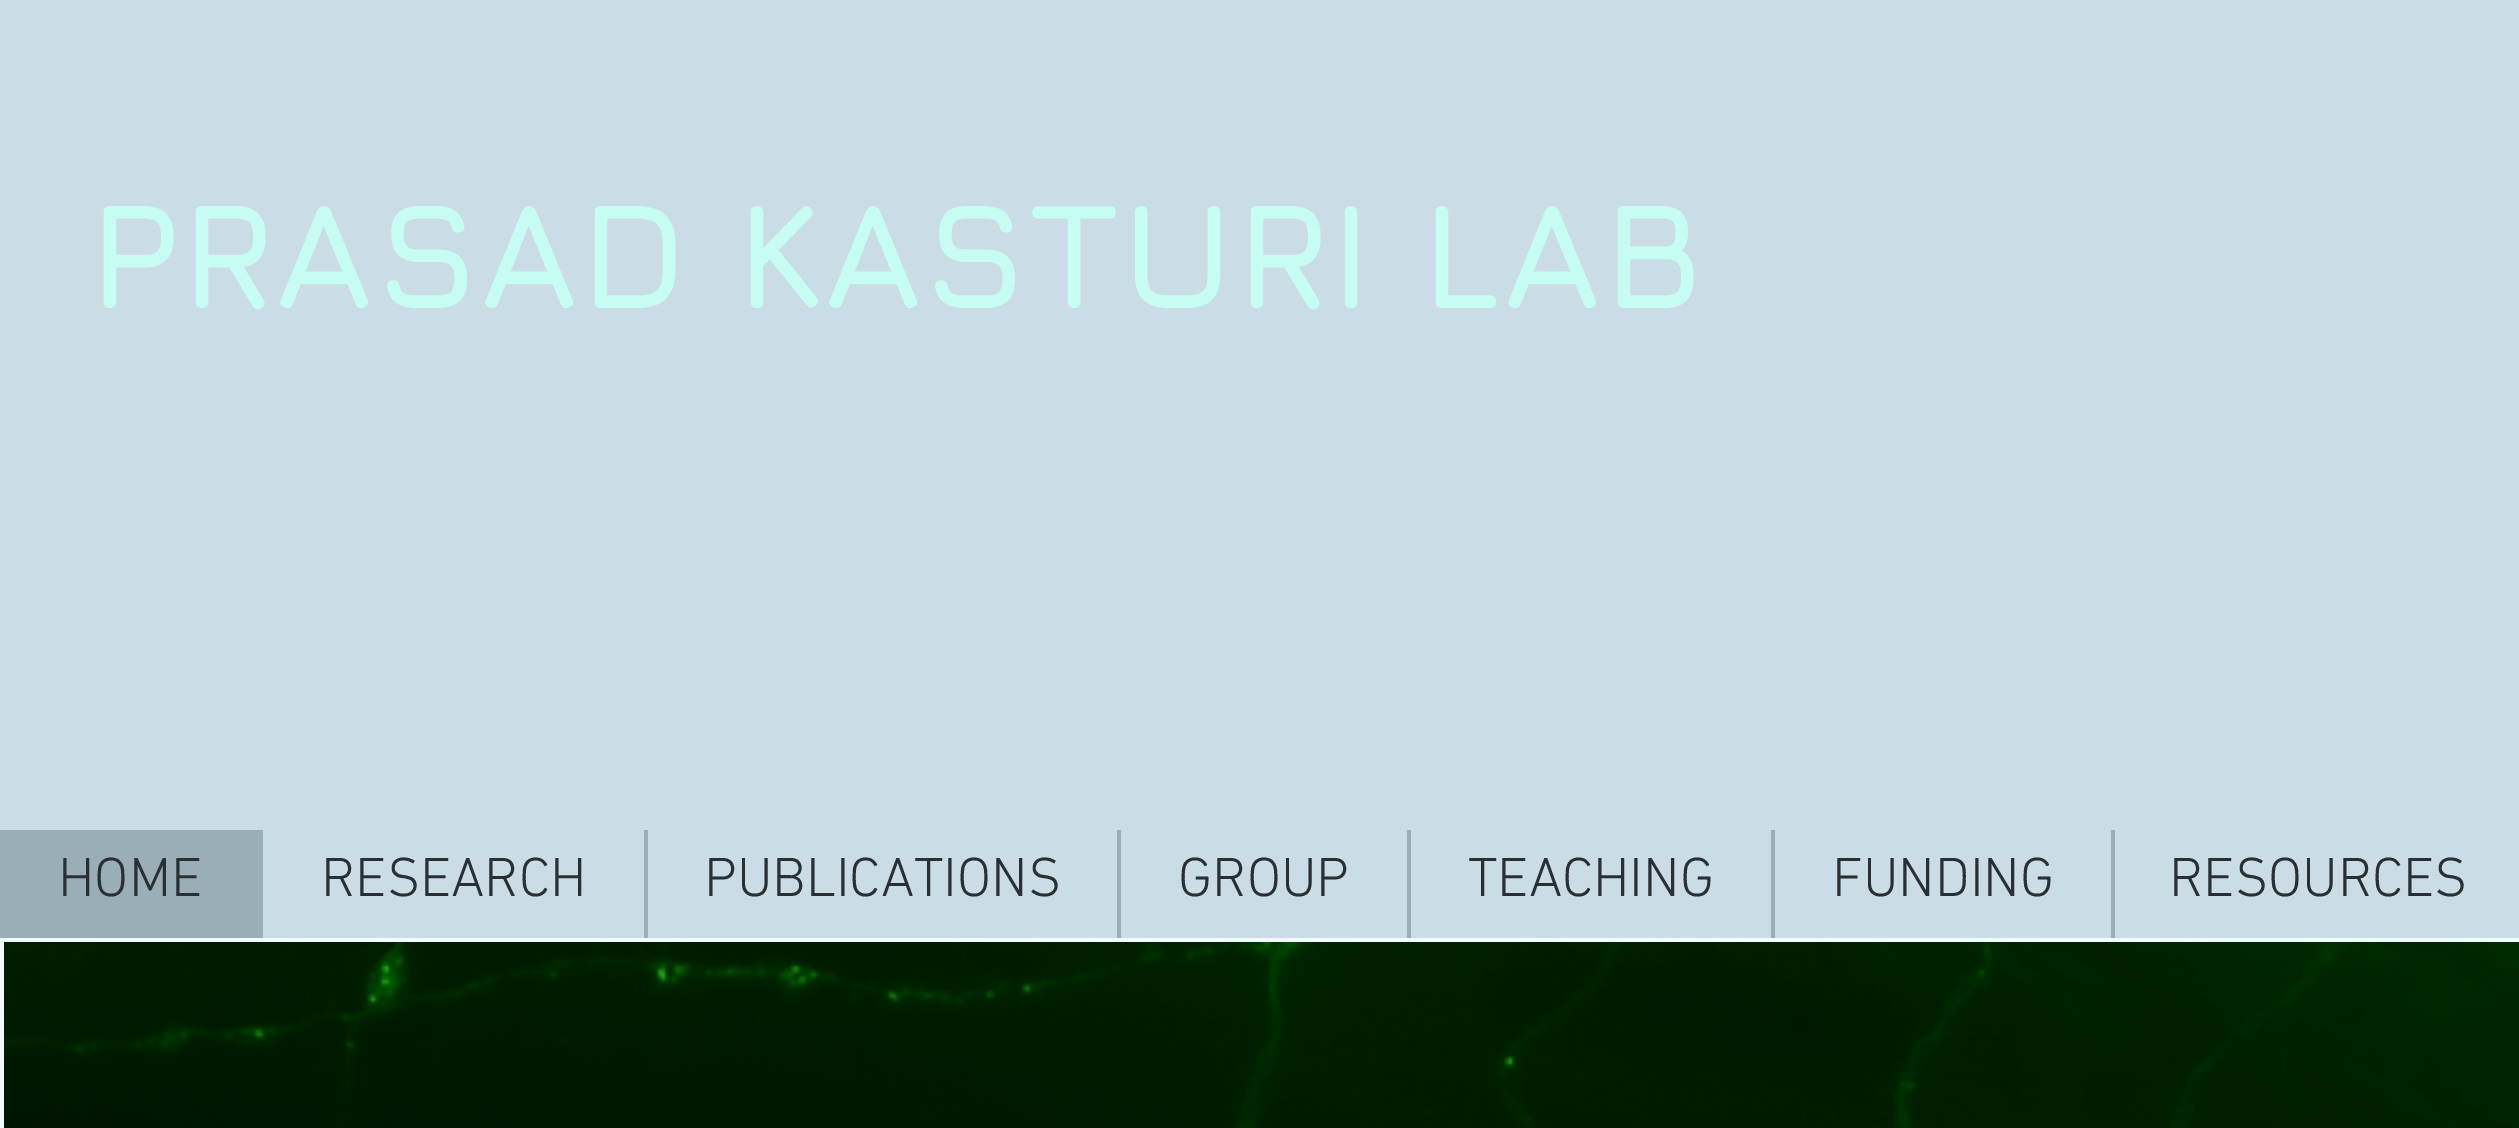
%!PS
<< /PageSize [2519 1128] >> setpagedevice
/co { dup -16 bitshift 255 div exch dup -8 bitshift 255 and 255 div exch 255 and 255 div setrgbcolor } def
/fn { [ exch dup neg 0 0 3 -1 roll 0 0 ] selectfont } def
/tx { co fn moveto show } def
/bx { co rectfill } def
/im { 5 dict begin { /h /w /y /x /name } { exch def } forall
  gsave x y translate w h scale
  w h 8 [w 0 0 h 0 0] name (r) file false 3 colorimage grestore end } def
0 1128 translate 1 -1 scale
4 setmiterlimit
0 0 2519 1128 16#CADDE6 bx
0 830 263 108 16#9AAEB8 bx
644 830 4 108 16#9AAEB8 bx
1117 830 4 108 16#9AAEB8 bx
1407 830 4 108 16#9AAEB8 bx
1771 830 4 108 16#9AAEB8 bx
2111 830 4 108 16#9AAEB8 bx
0 938 2519 190 16#F0FAFF bx
(media/1.raw) 4 942 2515 186 im
(PRASAD KASTURI LAB) 88 308 /Jura-Bold 150.5 16#C7FCF2 tx
(HOME) 58 896 /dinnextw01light-Light 56 16#292F33 tx
(RESEARCH) 321 896 /dinnextw01light-Light 56 16#292F33 tx
(PUBLICATIONS) 704 896 /dinnextw01light-Light 56 16#292F33 tx
(GROUP) 1178 896 /dinnextw01light-Light 56 16#292F33 tx
(TEACHING) 1468 896 /dinnextw01light-Light 56 16#292F33 tx
(FUNDING) 1832 896 /dinnextw01light-Light 56 16#292F33 tx
(RESOURCES) 2169 896 /dinnextw01light-Light 56 16#292F33 tx
showpage
